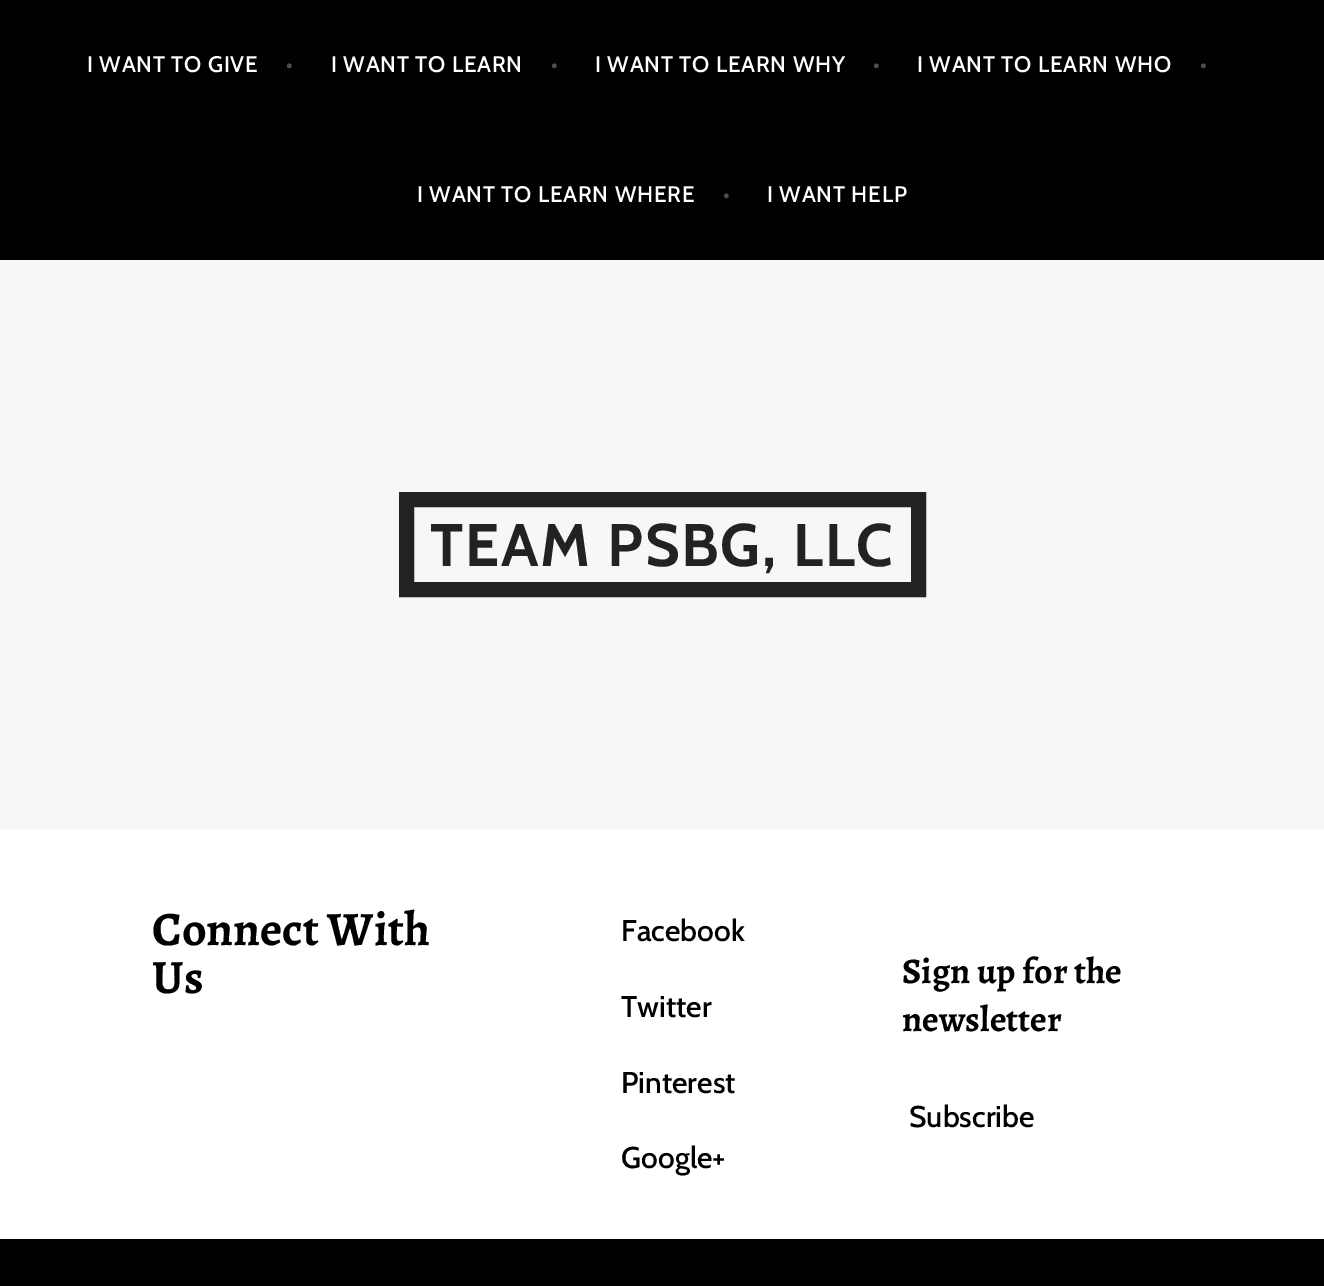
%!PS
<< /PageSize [1324 1286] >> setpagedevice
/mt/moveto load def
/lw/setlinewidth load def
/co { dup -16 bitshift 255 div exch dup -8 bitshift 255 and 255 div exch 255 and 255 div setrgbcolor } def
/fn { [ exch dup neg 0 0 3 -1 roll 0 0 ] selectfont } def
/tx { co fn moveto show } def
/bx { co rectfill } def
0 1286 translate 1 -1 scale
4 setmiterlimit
0 0 1324 1286 16#FFFFFF bx
0 0 1324 260 16#000000 bx
0 260 1324 570 16#F7F7F7 bx
16#222222 co
15 lw
406.5 499.5 512 90 rectstroke
0 1239 1324 47 16#000000 bx
/Cabin-Medium 22.5 fn
16#FFFFFF co
87 72 mt .7 0 (I WANT TO GIVE) ashow
16#4D4D4D co
286 72 mt .7 0 (•) ashow
16#FFFFFF co
331 72 mt .7 0 (I WANT TO LEARN) ashow
16#4D4D4D co
551 72 mt .7 0 (•) ashow
16#FFFFFF co
595 72 mt .7 0 (I WANT TO LEARN WHY) ashow
16#4D4D4D co
873 72 mt .7 0 (•) ashow
16#FFFFFF co
917 72 mt .7 0 (I WANT TO LEARN WHO) ashow
16#4D4D4D co
1200 72 mt .7 0 (•) ashow
16#FFFFFF co
417 202 mt .7 0 (I WANT TO LEARN WHERE) ashow
16#4D4D4D co
723 202 mt .7 0 (•) ashow
16#FFFFFF co
767 202 mt .7 0 (I WANT HELP) ashow
/Cabin-Bold 60 fn
16#222222 co
430 566 mt 1.75 0 (TEAM PSBG, LLC) ashow
(Connect With) 152 945 /Alegreya-Bold 48 16#000000 tx
(Us) 152 993 /Alegreya-Bold 48 16#000000 tx
(Facebook) 621 941 /Cabin-Medium 30 16#000000 tx
(Twitter) 621 1017 /Cabin-Medium 30 16#000000 tx
(Pinterest) 621 1093 /Cabin-Medium 30 16#000000 tx
(Google+) 621 1168 /Cabin-Medium 30 16#000000 tx
(Sign up for the) 902 983 /Alegreya-Bold 36 16#000000 tx
(newsletter) 902 1031 /Alegreya-Bold 36 16#000000 tx
(Subscribe) 909 1127 /Cabin-Medium 30 16#000000 tx
showpage
